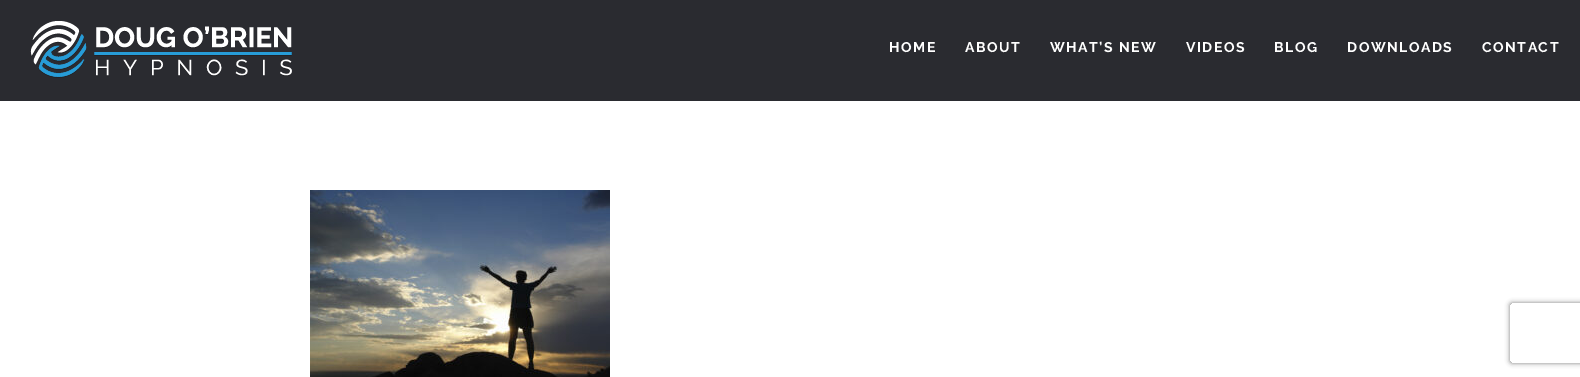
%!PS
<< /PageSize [1580 377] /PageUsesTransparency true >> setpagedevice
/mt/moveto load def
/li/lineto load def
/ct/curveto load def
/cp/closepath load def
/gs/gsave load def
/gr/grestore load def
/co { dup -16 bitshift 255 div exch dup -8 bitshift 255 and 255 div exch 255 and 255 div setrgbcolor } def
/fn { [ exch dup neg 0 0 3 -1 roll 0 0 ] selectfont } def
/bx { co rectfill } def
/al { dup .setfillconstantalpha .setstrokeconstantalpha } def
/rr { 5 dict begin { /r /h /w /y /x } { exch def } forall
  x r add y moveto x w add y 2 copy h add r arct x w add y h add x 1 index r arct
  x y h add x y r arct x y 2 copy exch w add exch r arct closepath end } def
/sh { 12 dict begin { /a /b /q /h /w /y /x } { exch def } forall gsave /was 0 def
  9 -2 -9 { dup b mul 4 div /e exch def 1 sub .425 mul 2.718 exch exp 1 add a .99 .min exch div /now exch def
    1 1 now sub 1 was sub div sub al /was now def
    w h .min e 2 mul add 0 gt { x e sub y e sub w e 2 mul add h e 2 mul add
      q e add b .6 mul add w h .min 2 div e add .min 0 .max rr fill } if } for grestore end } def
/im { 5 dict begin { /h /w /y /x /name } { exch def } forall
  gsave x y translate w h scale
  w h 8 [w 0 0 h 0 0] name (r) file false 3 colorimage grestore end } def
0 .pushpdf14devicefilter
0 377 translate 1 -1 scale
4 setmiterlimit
0 0 1580 377 16#FFFFFF bx
0 0 1580 101 16#2A2B30 bx
(media/1.raw) 30 21 262 57 im
(media/2.raw) 310 190 300 187 im
gs
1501 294 mt 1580 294 li 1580 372 li 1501 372 li cp 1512 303 mt 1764 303 li 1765 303 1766 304 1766 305 ct 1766 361 li 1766 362 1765 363 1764 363 ct 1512 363 li 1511 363 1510 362 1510 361 ct 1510 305 li 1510 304 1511 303 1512 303 ct cp eoclip newpath
16#808080 co
1510 303 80 60 2 2.5 1 sh
gr
/Raleway-Bold 14 fn
16#FFFFFF co
889 52 mt 1.5 0 (HOME) ashow
965 52 mt 1.5 0 (ABOUT) ashow
1050 52 mt 1.5 0 (WHAT’S NEW) ashow
1186 52 mt 1.5 0 (VIDEOS) ashow
1274 52 mt 1.5 0 (BLOG) ashow
1347 52 mt 1.5 0 (DOWNLOADS) ashow
1482 52 mt 1.5 0 (CONTACT) ashow
.poppdf14devicefilter showpage
